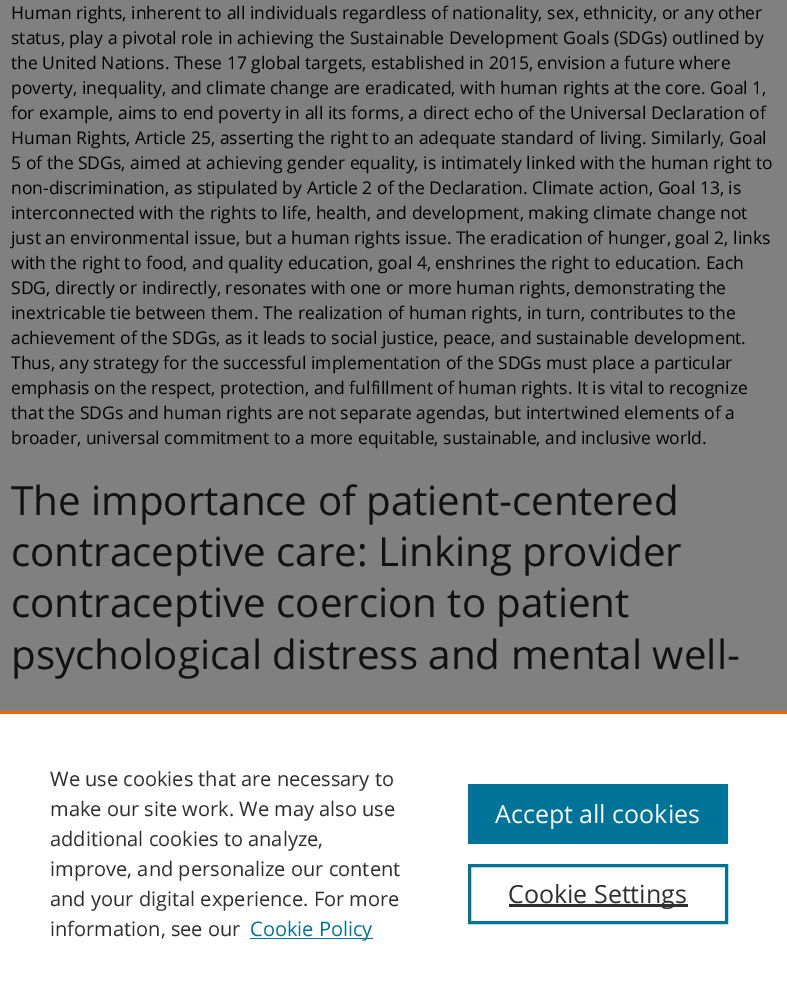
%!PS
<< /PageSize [787 993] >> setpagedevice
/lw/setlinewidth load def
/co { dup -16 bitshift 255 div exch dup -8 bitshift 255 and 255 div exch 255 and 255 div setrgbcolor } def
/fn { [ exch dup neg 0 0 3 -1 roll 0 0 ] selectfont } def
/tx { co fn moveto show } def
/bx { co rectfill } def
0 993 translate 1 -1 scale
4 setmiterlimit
0 0 787 993 16#808080 bx
0 714 787 279 16#FFFFFF bx
0 711 787 3 16#EB6500 bx
250 938 123 1 16#007398 bx
468 784 260 60 16#007398 bx
3 lw
469.5 865.5 257 57 rectstroke
509 904 179 3 16#2E2E2E bx
(Human rights, inherent to all individuals regardless of nationality, sex, ethnicity, or any other) 11 19 /OpenSans-Regular 17.5 16#000000 tx
(status, play a pivotal role in achieving the Sustainable Development Goals \(SDGs\) outlined by) 11 44 /OpenSans-Regular 17.5 16#000000 tx
(the United Nations. These 17 global targets, established in 2015, envision a future where) 11 69 /OpenSans-Regular 17.5 16#000000 tx
(poverty, inequality, and climate change are eradicated, with human rights at the core. Goal 1,) 11 94 /OpenSans-Regular 17.5 16#000000 tx
(for example, aims to end poverty in all its forms, a direct echo of the Universal Declaration of) 11 119 /OpenSans-Regular 17.5 16#000000 tx
(Human Rights, Article 25, asserting the right to an adequate standard of living. Similarly, Goal) 11 144 /OpenSans-Regular 17.5 16#000000 tx
(5 of the SDGs, aimed at achieving gender equality, is intimately linked with the human right to) 11 169 /OpenSans-Regular 17.5 16#000000 tx
(non-discrimination, as stipulated by Article 2 of the Declaration. Climate action, Goal 13, is) 11 194 /OpenSans-Regular 17.5 16#000000 tx
(interconnected with the rights to life, health, and development, making climate change not) 11 219 /OpenSans-Regular 17.5 16#000000 tx
(just an environmental issue, but a human rights issue. The eradication of hunger, goal 2, links) 11 244 /OpenSans-Regular 17.5 16#000000 tx
(with the right to food, and quality education, goal 4, enshrines the right to education. Each) 11 269 /OpenSans-Regular 17.5 16#000000 tx
(SDG, directly or indirectly, resonates with one or more human rights, demonstrating the) 11 294 /OpenSans-Regular 17.5 16#000000 tx
(inextricable tie between them. The realization of human rights, in turn, contributes to the) 11 319 /OpenSans-Regular 17.5 16#000000 tx
(achievement of the SDGs, as it leads to social justice, peace, and sustainable development.) 11 344 /OpenSans-Regular 17.5 16#000000 tx
(Thus, any strategy for the successful implementation of the SDGs must place a particular) 11 369 /OpenSans-Regular 17.5 16#000000 tx
(emphasis on the respect, protection, and fulfillment of human rights. It is vital to recognize) 11 394 /OpenSans-Regular 17.5 16#000000 tx
(that the SDGs and human rights are not separate agendas, but intertwined elements of a) 11 419 /OpenSans-Regular 17.5 16#000000 tx
(broader, universal commitment to a more equitable, sustainable, and inclusive world.) 11 444 /OpenSans-Regular 17.5 16#000000 tx
(The importance of patient-centered) 11 515 /OpenSans-Regular 40.25 16#111111 tx
(contraceptive care: Linking provider) 11 566 /OpenSans-Regular 40.25 16#111111 tx
(contraceptive coercion to patient) 11 617 /OpenSans-Regular 40.25 16#111111 tx
(psychological distress and mental well-) 11 669 /OpenSans-Regular 40.25 16#111111 tx
(We use cookies that are necessary to) 50 786 /OpenSans-Regular 20 16#2E2E2E tx
(make our site work. We may also use) 50 816 /OpenSans-Regular 20 16#2E2E2E tx
(additional cookies to analyze,) 50 846 /OpenSans-Regular 20 16#2E2E2E tx
(improve, and personalize our content) 50 876 /OpenSans-Regular 20 16#2E2E2E tx
(and your digital experience. For more) 50 906 /OpenSans-Regular 20 16#2E2E2E tx
(information, see our) 50 936 /OpenSans-Regular 20 16#2E2E2E tx
(Cookie Policy) 250 936 /OpenSans-Regular 20 16#007398 tx
(Accept all cookies) 495 823 /OpenSans-Regular 25 16#FFFFFF tx
(Cookie Settings) 508 903 /OpenSans-Regular 25 16#2E2E2E tx
showpage
